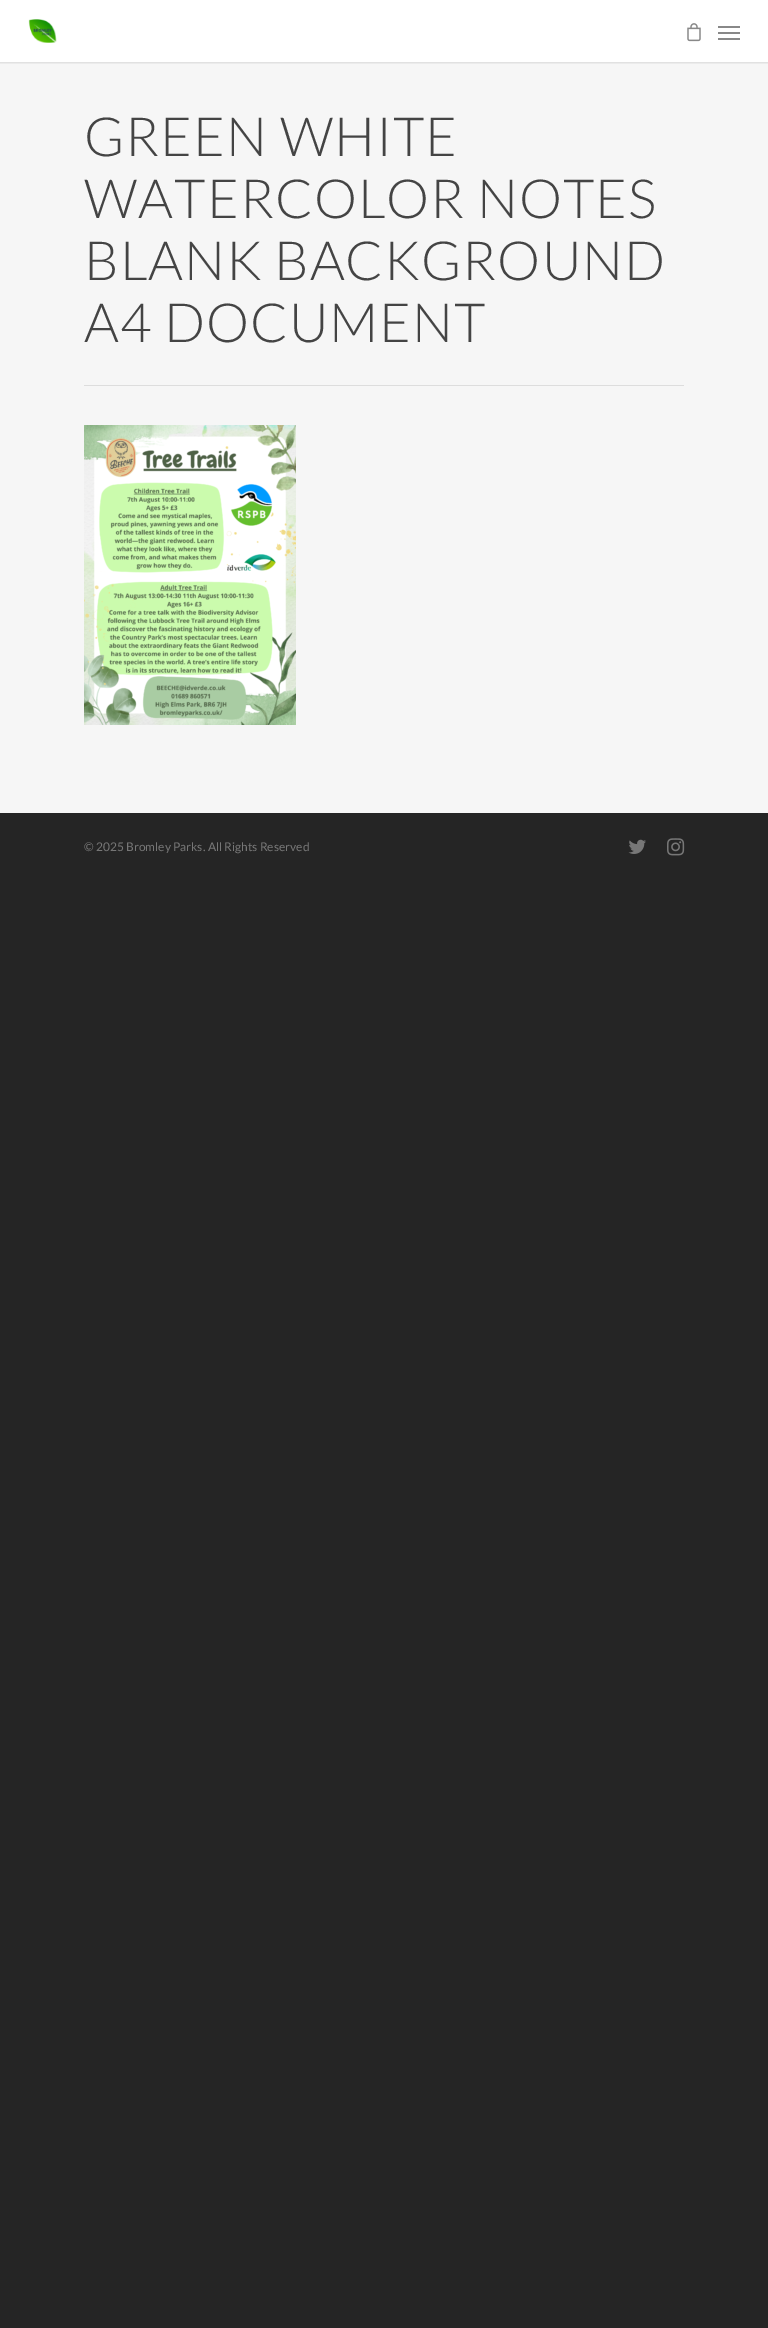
%!PS
<< /PageSize [768 2328] /PageUsesTransparency true >> setpagedevice
/mt/moveto load def
/gs/gsave load def
/gr/grestore load def
/co { dup -16 bitshift 255 div exch dup -8 bitshift 255 and 255 div exch 255 and 255 div setrgbcolor } def
/fn { [ exch dup neg 0 0 3 -1 roll 0 0 ] selectfont } def
/tx { co fn moveto show } def
/bx { co rectfill } def
/al { dup .setfillconstantalpha .setstrokeconstantalpha } def
/rr { 5 dict begin { /r /h /w /y /x } { exch def } forall
  x r add y moveto x w add y 2 copy h add r arct x w add y h add x 1 index r arct
  x y h add x y r arct x y 2 copy exch w add exch r arct closepath end } def
/sh { 12 dict begin { /a /b /q /h /w /y /x } { exch def } forall gsave /was 0 def
  9 -2 -9 { dup b mul 4 div /e exch def 1 sub .425 mul 2.718 exch exp 1 add a .99 .min exch div /now exch def
    1 1 now sub 1 was sub div sub al /was now def
    w h .min e 2 mul add 0 gt { x e sub y e sub w e 2 mul add h e 2 mul add
      q e add b .6 mul add w h .min 2 div e add .min 0 .max rr fill } if } for grestore end } def
/im { 5 dict begin { /h /w /y /x /name } { exch def } forall
  gsave x y translate w h scale
  w h 8 [w 0 0 h 0 0] name (r) file false 3 colorimage grestore end } def
0 .pushpdf14devicefilter
0 2328 translate 1 -1 scale
4 setmiterlimit
0 0 768 2328 16#252525 bx
0 0 768 62 16#FFFFFF bx
0 62 768 751 16#F6F6F6 bx
gs
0 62 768 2 rectclip
16#000000 co
0 0 768 62 0 1.5 .22 sh
gr
(media/1.raw) 28 19 29 24 im
(media/2.raw) 687 23 14 19 im
718 26 22 2 16#888888 bx
718 38 22 2 16#888888 bx
718 32 22 2 16#888888 bx
84 385 600 1 16#DDDDDD bx
(media/3.raw) 84 425 212 300 im
(media/4.raw) 628 839 18 15 im
(media/5.raw) 667 838 18 18 im
/Lato-Light 54 fn
16#444444 co
84 156 mt 1 0 (GREEN WHITE) ashow
84 218 mt 1 0 (WATERCOLOR NOTES) ashow
84 280 mt 1 0 (BLANK BACKGROUND) ashow
84 342 mt 1 0 (A4 DOCUMENT) ashow
(© 2025 Bromley Parks. All Rights Reserved) 84 851 /Lato-Regular 12 16#777777 tx
.poppdf14devicefilter showpage
